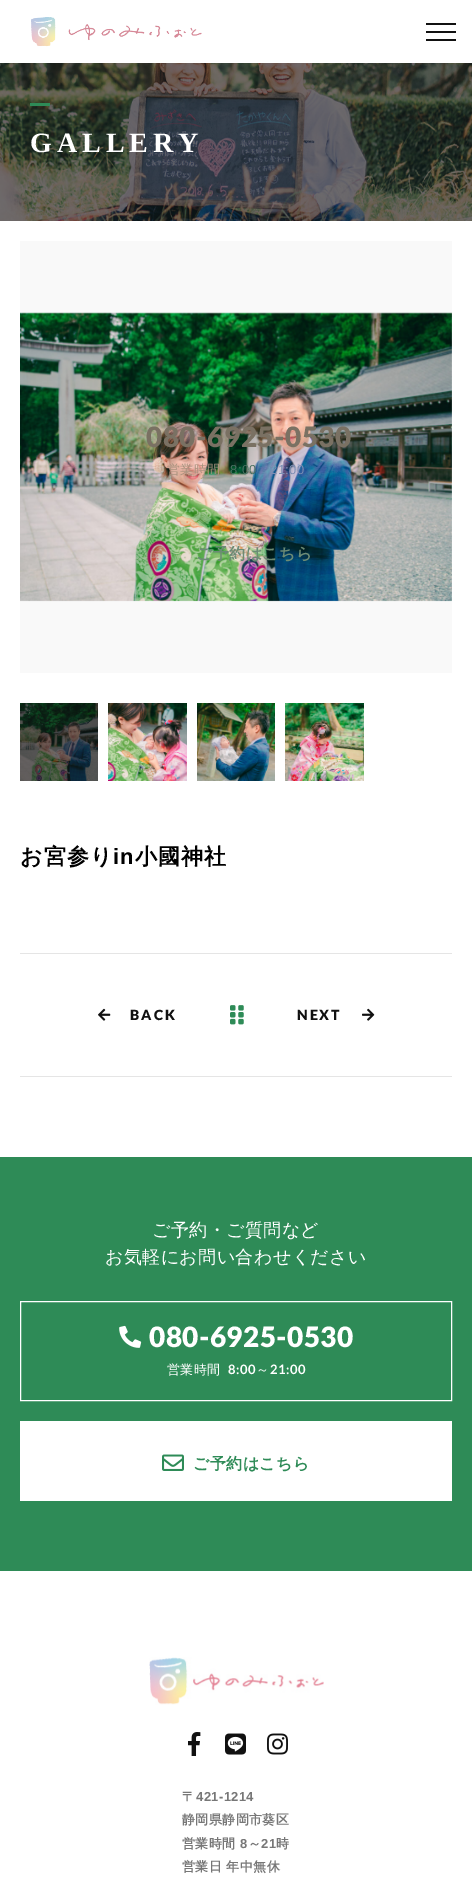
%!PS
<< /PageSize [472 1882] >> setpagedevice
/mt/moveto load def
/co { dup -16 bitshift 255 div exch dup -8 bitshift 255 and 255 div exch 255 and 255 div setrgbcolor } def
/fn { [ exch dup neg 0 0 3 -1 roll 0 0 ] selectfont } def
/bx { co rectfill } def
/im { 5 dict begin { /h /w /y /x /name } { exch def } forall
  gsave x y translate w h scale
  w h 8 [w 0 0 h 0 0] name (r) file false 3 colorimage grestore end } def
0 1882 translate 1 -1 scale
4 setmiterlimit
0 0 472 1882 16#FFFFFF bx
(media/1.raw) 31 17 171 30 im
426 23 30 2 16#111111 bx
426 31 30 2 16#111111 bx
426 39 30 2 16#111111 bx
(media/2.raw) 0 63 472 158 im
30 103 20 3 16#2E8B57 bx
20 241 432 432 16#F9F9F9 bx
(media/3.raw) 20 312 432 290 im
(media/4.raw) 20 703 78 78 im
(media/5.raw) 108 703 79 78 im
(media/6.raw) 197 703 78 78 im
(media/7.raw) 285 703 79 78 im
20 953 432 1 16#E5E5E5 bx
20 1076 432 1 16#E5E5E5 bx
(media/8.raw) 98 1008 13 13 im
(media/9.raw) 230 1005 14 20 im
(media/10.raw) 362 1008 13 13 im
0 1157 472 414 16#2E8B57 bx
16#FFFFFF co
20.5 1301.5 431 99 rectstroke
(media/11.raw) 119 1325 23 23 im
20 1421 432 80 16#FFFFFF bx
(media/12.raw) 162 1454 22 17 im
(media/13.raw) 149 1657 175 48 im
(media/14.raw) 188 1732 13 24 im
(media/15.raw) 225 1733 21 22 im
(media/16.raw) 267 1733 21 22 im
/LiberationSerif-Bold 28 fn
30 152 mt 5 0 (GALLERY) ashow
/WenQuanYiZenHei-Bold 22 fn
16#000000 co
20 864 mt 1 0 (お宮参り) ashow
/LiberationSans-Bold 22 fn
113 864 mt 1 0 (in) ashow
/WenQuanYiZenHei-Bold 22 fn
135 864 mt 1 0 (小國神社) ashow
/Lato-Black 14 fn
16#111111 co
130 1020 mt 2 0 (BACK) ashow
297 1020 mt 2 0 (NEXT) ashow
/WenQuanYiZenHei-Medium 18 fn
16#FFFFFF co
152 1236 mt .4 0 (ご予約・ご質問など) ashow
105 1263 mt .4 0 (お気軽にお問い合わせください) ashow
/Lato-Black 28 fn
149 1347 mt .4 0 (080-6925-0530) ashow
/WenQuanYiZenHei-Medium 13 fn
167 1374 mt .4 0 (営業時間) ashow
/Lato-Bold 13 fn
228 1374 mt .4 0 (8:00) ashow
/WenQuanYiZenHei-Medium 13 fn
256 1374 mt .4 0 (～) ashow
/Lato-Bold 13 fn
270 1374 mt .4 0 (21:00) ashow
/WenQuanYiZenHei-Bold 16 fn
16#2E8B57 co
193 1469 mt .4 0 (ご予約はこちら) ashow
/WenQuanYiZenHei-Bold 13 fn
16#777777 co
182 1801 mt .4 0 (〒) ashow
/LiberationSans-Bold 13 fn
196 1801 mt .4 0 (421-1214) ashow
/WenQuanYiZenHei-Bold 13 fn
182 1824 mt .4 0 (静岡県静岡市葵区) ashow
182 1848 mt .4 0 (営業時間) ashow
/LiberationSans-Bold 13 fn
240 1848 mt .4 0 (8) ashow
/WenQuanYiZenHei-Bold 13 fn
248 1848 mt .4 0 (～) ashow
/LiberationSans-Bold 13 fn
261 1848 mt .4 0 (21) ashow
/WenQuanYiZenHei-Bold 13 fn
276 1848 mt .4 0 (時) ashow
182 1871 mt .4 0 (営業日 年中無休) ashow
/Lato-Black 28 fn
16#7A7163 co
146 447 mt .5 0 (080-6925-0530) ashow
/WenQuanYiZenHei-Medium 13 fn
16#AB937F co
167 474 mt .4 0 (営業時間) ashow
/LiberationSans-Regular 13 fn
16#497162 co
230 474 mt .4 0 (8:00) ashow
16#7D8EB3 co
270 474 mt .4 0 (21:00) ashow
/WenQuanYiZenHei-Bold 16 fn
16#6C8B75 co
196 559 mt .4 0 (ご予約はこちら) ashow
showpage
